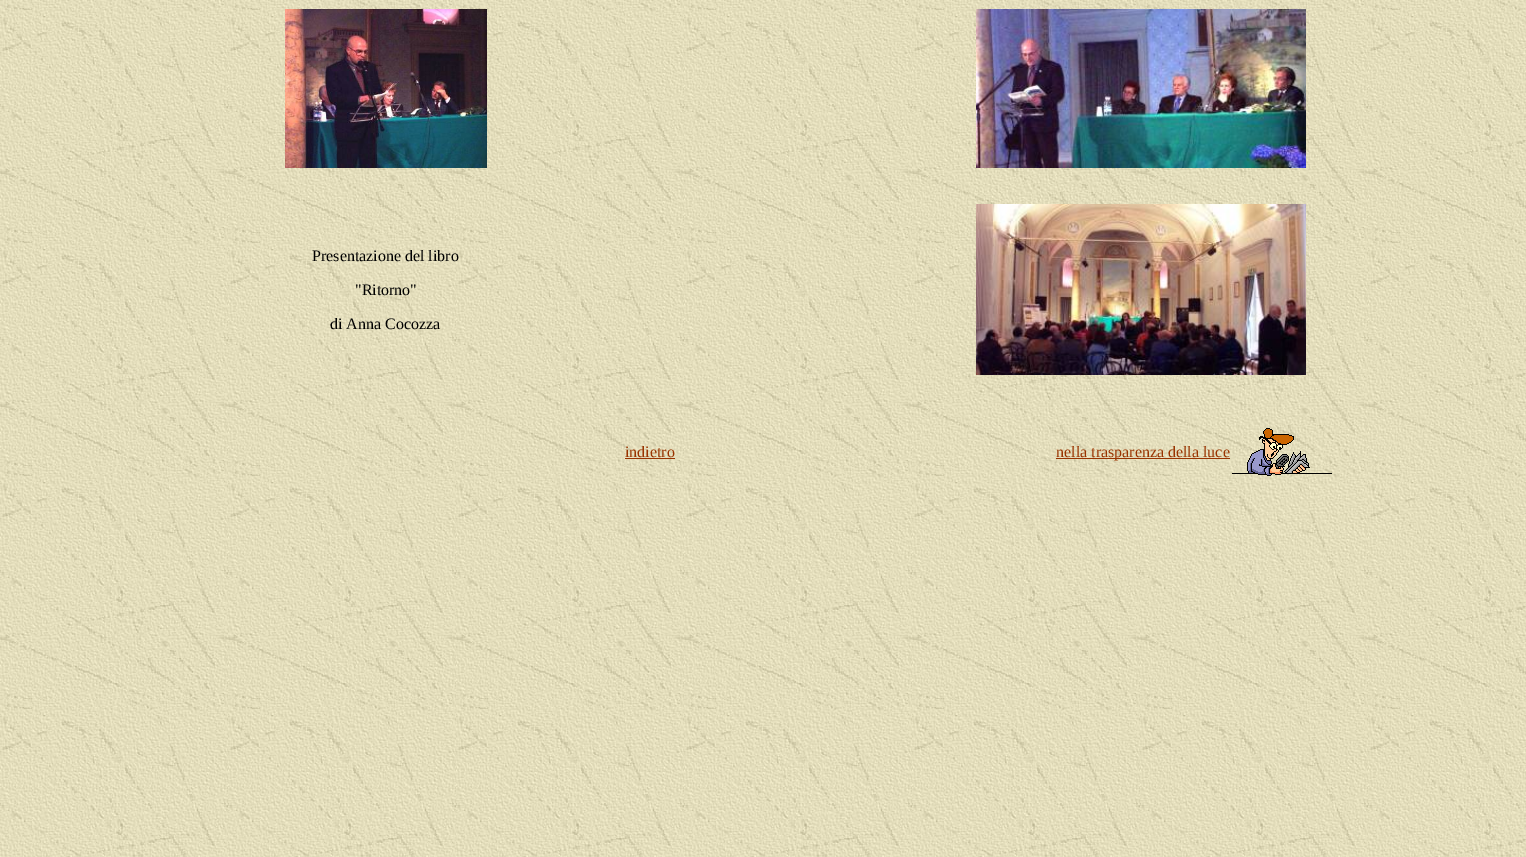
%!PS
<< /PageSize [1526 857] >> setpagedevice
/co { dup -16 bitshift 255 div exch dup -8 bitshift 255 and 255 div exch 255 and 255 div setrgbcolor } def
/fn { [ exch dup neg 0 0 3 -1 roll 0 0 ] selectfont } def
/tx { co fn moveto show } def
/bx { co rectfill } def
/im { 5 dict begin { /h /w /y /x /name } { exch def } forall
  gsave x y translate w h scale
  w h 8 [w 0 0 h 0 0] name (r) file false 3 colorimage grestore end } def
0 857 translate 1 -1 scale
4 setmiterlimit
0 0 1526 857 16#FFFFFF bx
(media/1.raw) 0 0 1526 857 im
(media/2.raw) 285 9 202 159 im
(media/3.raw) 976 9 330 159 im
(media/4.raw) 976 204 330 171 im
625 458 50 1 16#993300 bx
1056 458 174 1 16#993300 bx
(media/5.raw) 1232 428 100 48 im
(Presentazione del libro) 312 261 /LiberationSerif-Regular 16 16#000000 tx
("Ritorno") 355 295 /LiberationSerif-Regular 16 16#000000 tx
(di Anna Cocozza) 330 329 /LiberationSerif-Regular 16 16#000000 tx
(indietro) 625 457 /LiberationSerif-Regular 16 16#993300 tx
(nella trasparenza della luce) 1056 457 /LiberationSerif-Regular 16 16#993300 tx
showpage
